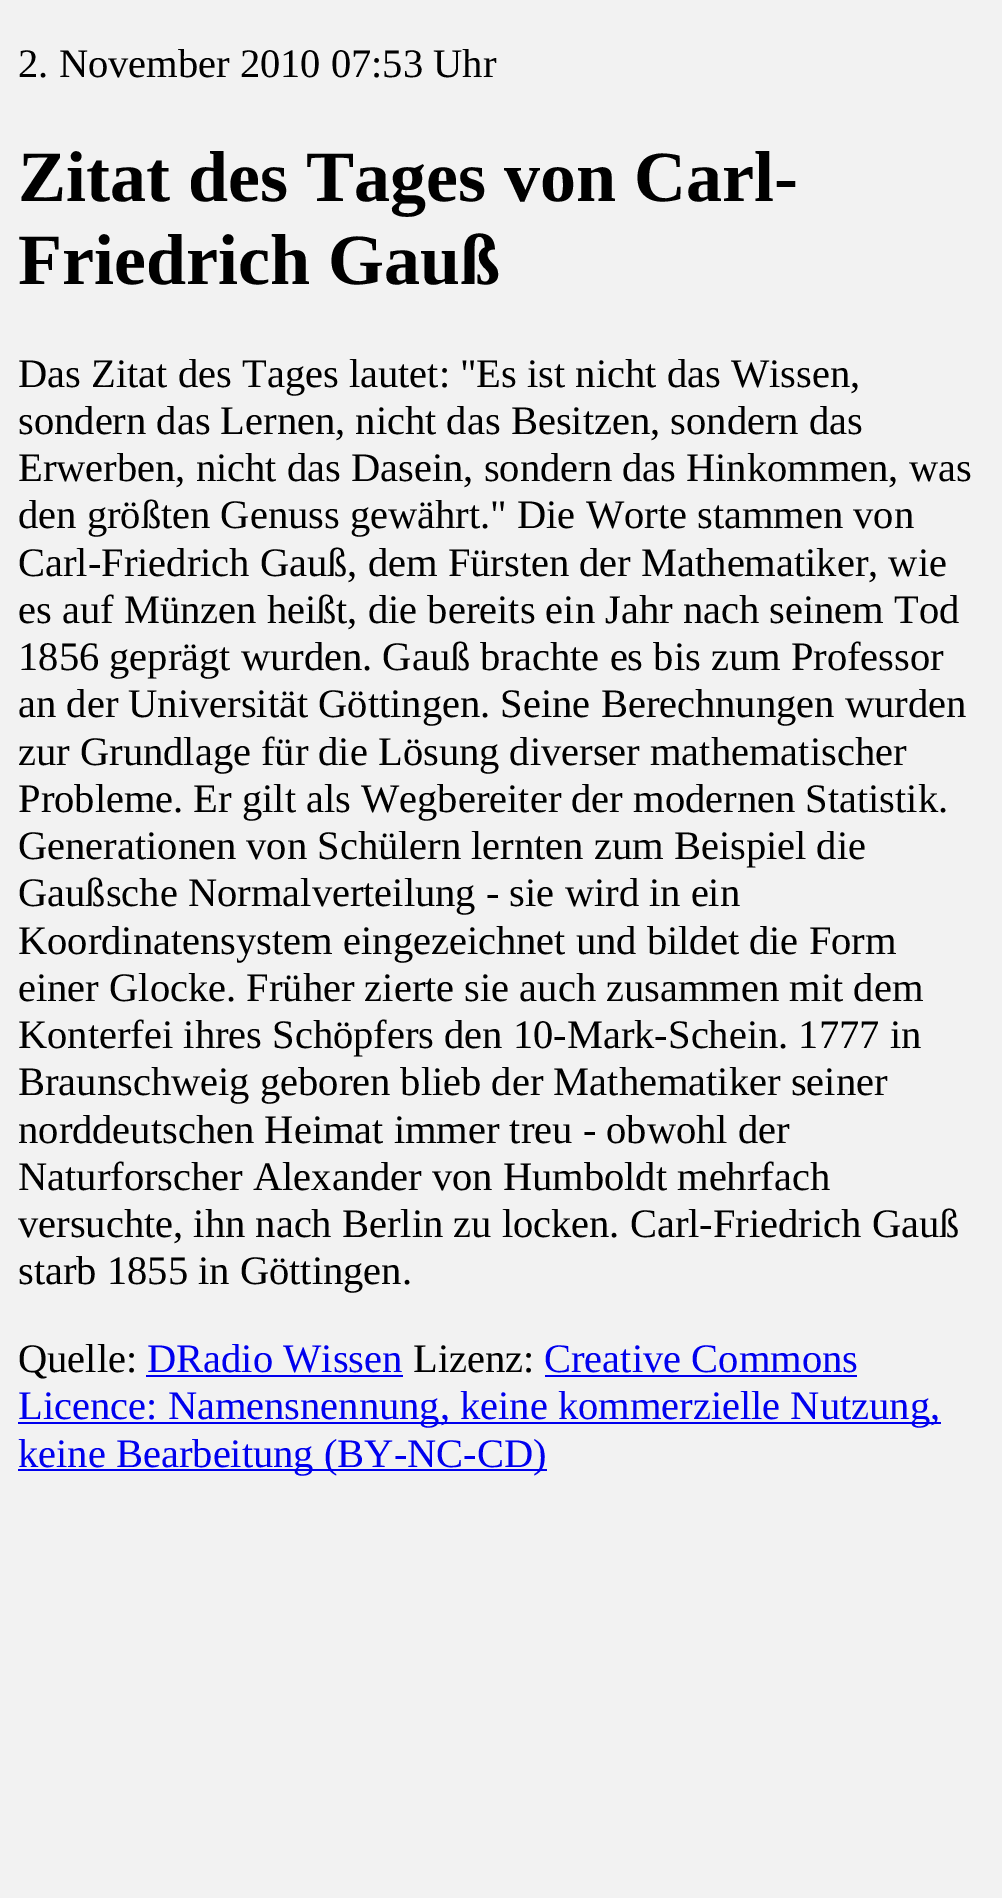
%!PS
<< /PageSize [1002 1898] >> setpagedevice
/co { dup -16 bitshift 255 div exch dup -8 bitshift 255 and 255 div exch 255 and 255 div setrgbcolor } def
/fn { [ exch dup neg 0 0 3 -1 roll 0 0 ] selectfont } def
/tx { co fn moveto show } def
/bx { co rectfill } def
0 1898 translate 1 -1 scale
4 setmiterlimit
0 0 1002 1898 16#F2F2F2 bx
146 1375 257 2 16#0000EE bx
545 1375 312 2 16#0000EE bx
18 1422 923 2 16#0000EE bx
18 1469 529 2 16#0000EE bx
(2. November 2010 07:53 Uhr) 18 77 /LiberationSerif-Regular 40.5 16#000000 tx
(Zitat des Tages von Carl-) 18 201 /LiberationSerif-Bold 72 16#000000 tx
(Friedrich Gauß) 18 284 /LiberationSerif-Bold 72 16#000000 tx
(Das Zitat des Tages lautet: "Es ist nicht das Wissen,) 18 387 /LiberationSerif-Regular 40.5 16#000000 tx
(sondern das Lernen, nicht das Besitzen, sondern das) 18 434 /LiberationSerif-Regular 40.5 16#000000 tx
(Erwerben, nicht das Dasein, sondern das Hinkommen, was) 18 481 /LiberationSerif-Regular 40.5 16#000000 tx
(den größten Genuss gewährt." Die Worte stammen von) 18 528 /LiberationSerif-Regular 40.5 16#000000 tx
(Carl-Friedrich Gauß, dem Fürsten der Mathematiker, wie) 18 576 /LiberationSerif-Regular 40.5 16#000000 tx
(es auf Münzen heißt, die bereits ein Jahr nach seinem Tod) 18 623 /LiberationSerif-Regular 40.5 16#000000 tx
(1856 geprägt wurden. Gauß brachte es bis zum Professor) 18 670 /LiberationSerif-Regular 40.5 16#000000 tx
(an der Universität Göttingen. Seine Berechnungen wurden) 18 717 /LiberationSerif-Regular 40.5 16#000000 tx
(zur Grundlage für die Lösung diverser mathematischer) 18 765 /LiberationSerif-Regular 40.5 16#000000 tx
(Probleme. Er gilt als Wegbereiter der modernen Statistik.) 18 812 /LiberationSerif-Regular 40.5 16#000000 tx
(Generationen von Schülern lernten zum Beispiel die) 18 859 /LiberationSerif-Regular 40.5 16#000000 tx
(Gaußsche Normalverteilung - sie wird in ein) 18 906 /LiberationSerif-Regular 40.5 16#000000 tx
(Koordinatensystem eingezeichnet und bildet die Form) 18 954 /LiberationSerif-Regular 40.5 16#000000 tx
(einer Glocke. Früher zierte sie auch zusammen mit dem) 18 1001 /LiberationSerif-Regular 40.5 16#000000 tx
(Konterfei ihres Schöpfers den 10-Mark-Schein. 1777 in) 18 1048 /LiberationSerif-Regular 40.5 16#000000 tx
(Braunschweig geboren blieb der Mathematiker seiner) 18 1095 /LiberationSerif-Regular 40.5 16#000000 tx
(norddeutschen Heimat immer treu - obwohl der) 18 1143 /LiberationSerif-Regular 40.5 16#000000 tx
(Naturforscher Alexander von Humboldt mehrfach) 18 1190 /LiberationSerif-Regular 40.5 16#000000 tx
(versuchte, ihn nach Berlin zu locken. Carl-Friedrich Gauß) 18 1237 /LiberationSerif-Regular 40.5 16#000000 tx
(starb 1855 in Göttingen.) 18 1284 /LiberationSerif-Regular 40.5 16#000000 tx
(Quelle:) 18 1372 /LiberationSerif-Regular 40.5 16#000000 tx
(DRadio Wissen) 147 1372 /LiberationSerif-Regular 40.5 16#0000EE tx
(Lizenz:) 413 1372 /LiberationSerif-Regular 40.5 16#000000 tx
(Creative Commons) 544 1372 /LiberationSerif-Regular 40.5 16#0000EE tx
(Licence: Namensnennung, keine kommerzielle Nutzung,) 18 1419 /LiberationSerif-Regular 40.5 16#0000EE tx
(keine Bearbeitung \(BY-NC-CD\)) 18 1467 /LiberationSerif-Regular 40.5 16#0000EE tx
showpage
